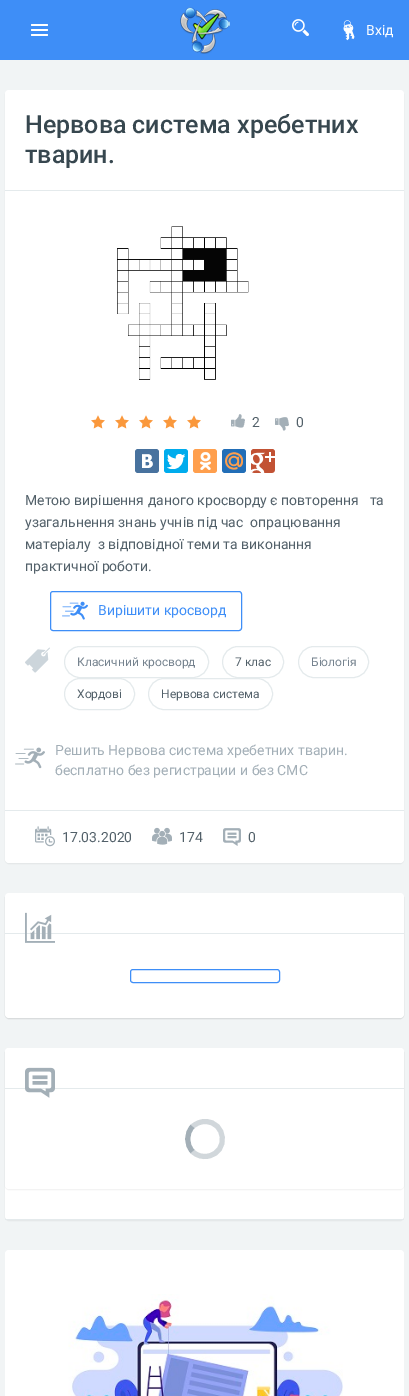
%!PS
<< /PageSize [409 1396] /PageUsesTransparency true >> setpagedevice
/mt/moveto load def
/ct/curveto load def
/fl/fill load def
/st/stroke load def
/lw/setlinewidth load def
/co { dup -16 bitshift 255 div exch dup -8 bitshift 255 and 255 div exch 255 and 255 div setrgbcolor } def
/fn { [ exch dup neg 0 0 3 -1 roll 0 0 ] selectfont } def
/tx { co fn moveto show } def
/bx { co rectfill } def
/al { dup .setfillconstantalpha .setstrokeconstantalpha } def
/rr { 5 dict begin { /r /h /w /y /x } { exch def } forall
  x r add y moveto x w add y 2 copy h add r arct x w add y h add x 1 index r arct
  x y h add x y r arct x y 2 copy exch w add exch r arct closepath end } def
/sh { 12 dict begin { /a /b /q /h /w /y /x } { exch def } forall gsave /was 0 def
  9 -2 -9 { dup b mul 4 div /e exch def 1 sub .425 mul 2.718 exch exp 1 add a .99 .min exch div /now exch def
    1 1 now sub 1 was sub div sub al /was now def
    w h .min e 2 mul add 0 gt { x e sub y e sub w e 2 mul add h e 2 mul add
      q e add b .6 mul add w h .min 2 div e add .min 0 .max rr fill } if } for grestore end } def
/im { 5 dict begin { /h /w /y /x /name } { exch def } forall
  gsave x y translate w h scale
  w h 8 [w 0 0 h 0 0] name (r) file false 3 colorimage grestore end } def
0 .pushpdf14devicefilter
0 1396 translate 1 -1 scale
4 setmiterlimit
0 0 409 1396 16#3E8EF7 bx
16#FFFFFF co
31 24 17 2 1 rr fl
31 29 17 2 1 rr fl
31 34 17 2 1 rr fl
(media/1.raw) 180 7 50 47 im
(media/2.raw) 292 19 17 17 im
(media/3.raw) 343 20 12 21 im
0 60 409 1336 16#F1F4F5 bx
16#000000 co
5 91 399 773 4 .5 .05 sh
16#FFFFFF co
5 90 399 773 4 rr fl
5 190 399 1 16#E4EAEC bx
(media/4.raw) 117 226 132 154 im
(media/5.raw) 91 415 14 14 im
(media/5.raw) 115 415 14 14 im
(media/5.raw) 139 415 14 14 im
(media/5.raw) 163 415 14 14 im
(media/5.raw) 187 415 14 14 im
(media/6.raw) 231 414 14 14 im
(media/7.raw) 275 417 14 14 im
16#48729E co
135 449 24 24 3 rr fl
(media/8.raw) 142 454 11 14 im
16#00ACED co
164 449 24 24 3 rr fl
(media/9.raw) 167 454 18 15 im
16#FF9F4D co
193 449 24 24 3 rr fl
(media/10.raw) 200 452 11 18 im
16#226EB7 co
222 449 24 24 3 rr fl
(media/11.raw) 225 452 18 18 im
16#C25234 co
251 449 24 24 3 rr fl
(media/12.raw) 251 452 24 21 im
16#3E8EF7 co
50.5 591.5 191 39 2.5 rr st
(media/13.raw) 62 601 26 19 im
(media/14.raw) 25 647 25 26 im
16#E4EAEC co
64.5 646.5 144 31 15.5 rr st
222.5 646.5 61 31 15.5 rr st
298.5 646.5 70 31 15.5 rr st
64.5 678.5 70 31 15.5 rr st
148.5 678.5 124 31 15.5 rr st
(media/15.raw) 15 747 30 22 im
5 810 399 1 16#E4EAEC bx
(media/16.raw) 35 826 20 21 im
(media/17.raw) 152 827 20 18 im
(media/18.raw) 223 828 18 18 im
16#000000 co
5 894 399 125 4 .5 .05 sh
5 894 399 125 4 .5 .05 sh
16#FFFFFF co
5 893 399 125 4 rr fl
5 933 399 1 16#E4EAEC bx
(media/19.raw) 25 912 30 31 im
16#3E8EF7 co
130.5 969.5 149 13 2.5 rr st
16#000000 co
5 1049 399 172 4 .5 .05 sh
16#FFFFFF co
5 1048 399 172 4 rr fl
16#000000 co
5 1049 399 141 4 .5 .05 sh
16#FFFFFF co
5 1048 399 141 4 rr fl
5 1088 399 1 16#E4EAEC bx
(media/20.raw) 25 1067 30 31 im
16#D1D7DB co
5 lw
192.5 1126.5 mt 196 1123.5 200.5 1121.5 205 1121.5 ct 226 1121.5 229 1152 208.5 1156 ct 202.5 1157.5 196.5 1155.5 192.5 1151.5 ct st
16#A3AFB7 co
192.5 1151.5 mt 186 1144.5 186 1133.5 192.5 1126.5 ct st
5 1219 399 1 16#E4EAEC bx
16#FFFFFF co
5 1250 399 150 4 rr fl
(media/21.raw) 68 1294 275 102 im
(Вхід) 366 35 /Roboto-Regular 14 16#FFFFFF tx
(Нервова система хребетних) 25 133 /Roboto-Medium 25 16#37474F tx
(тварин.) 25 163 /Roboto-Medium 25 16#37474F tx
(2) 252 427 /Roboto-Regular 14 16#526069 tx
(0) 296 427 /Roboto-Regular 14 16#526069 tx
(Метою вирішення даного кросворду є повторення   та) 25 505 /Roboto-Regular 14 16#526069 tx
(узагальнення знань учнів під час  опрацювання) 25 527 /Roboto-Regular 14 16#526069 tx
(матеріалу  з відповідної теми та виконання) 25 549 /Roboto-Regular 14 16#526069 tx
(практичної роботи.) 25 571 /Roboto-Regular 14 16#526069 tx
(Вирішити кросворд) 98 615 /Roboto-Regular 14 16#3E8EF7 tx
(Класичний кросворд) 77 666 /Roboto-Regular 12 16#76838F tx
(7 клас) 235 666 /Roboto-Regular 12 16#526069 tx
(Біологія) 311 666 /Roboto-Regular 12 16#76838F tx
(Хордові) 77 698 /Roboto-Regular 12 16#526069 tx
(Нервова система) 161 698 /Roboto-Regular 12 16#526069 tx
(Решить Нервова система хребетних тварин.) 55 755 /Roboto-Regular 14 16#A3AFB7 tx
(бесплатно без регистрации и без СМС) 55 775 /Roboto-Regular 14 16#A3AFB7 tx
(17.03.2020) 62 842 /Roboto-Regular 14 16#526069 tx
(174) 179 842 /Roboto-Regular 14 16#526069 tx
(0) 248 842 /Roboto-Regular 14 16#526069 tx
.poppdf14devicefilter showpage
